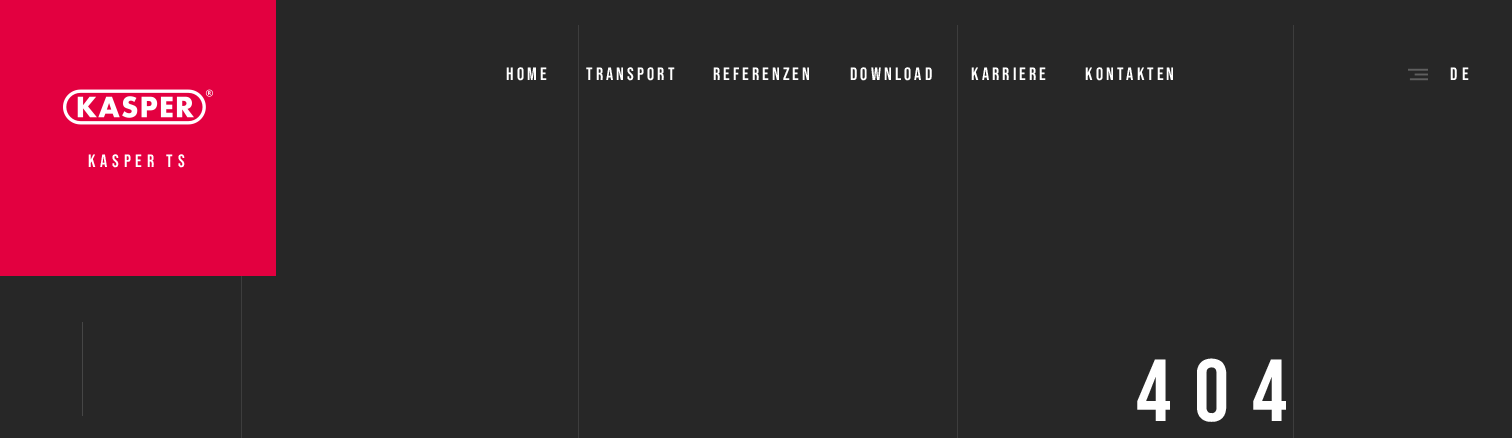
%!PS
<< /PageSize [1512 438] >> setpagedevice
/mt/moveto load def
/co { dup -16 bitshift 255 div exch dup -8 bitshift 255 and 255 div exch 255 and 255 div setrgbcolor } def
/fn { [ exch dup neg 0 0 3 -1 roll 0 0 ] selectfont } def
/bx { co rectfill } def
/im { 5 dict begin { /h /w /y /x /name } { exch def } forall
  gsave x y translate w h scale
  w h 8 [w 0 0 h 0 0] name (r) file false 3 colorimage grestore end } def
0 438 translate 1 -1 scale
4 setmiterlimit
0 0 1512 438 16#272727 bx
(media/1.raw) 1408 68 20 13 im
0 0 276 276 16#E30040 bx
(media/2.raw) 63 89 150 36 im
82 322 1 94 16#464646 bx
241 276 1 162 16#3D3D3D bx
578 25 1 413 16#3D3D3D bx
957 25 1 413 16#3D3D3D bx
1293 25 1 413 16#3D3D3D bx
/BebasNeue-Regular 18 fn
16#FFFFFF co
506 80 mt 3.1 0 (HOME) ashow
586 80 mt 3.1 0 (TRANSPORT) ashow
713 80 mt 3.1 0 (REFERENZEN) ashow
850 80 mt 3.1 0 (DOWNLOAD) ashow
971 80 mt 3.1 0 (KARRIERE) ashow
1085 80 mt 3.1 0 (KONTAKTEN) ashow
1450 80 mt 4.75 0 (DE) ashow
88 167 mt 4.75 0 (KASPER TS) ashow
/BebasNeue-Regular 88 fn
1136 421 mt 23 0 (404) ashow
showpage
